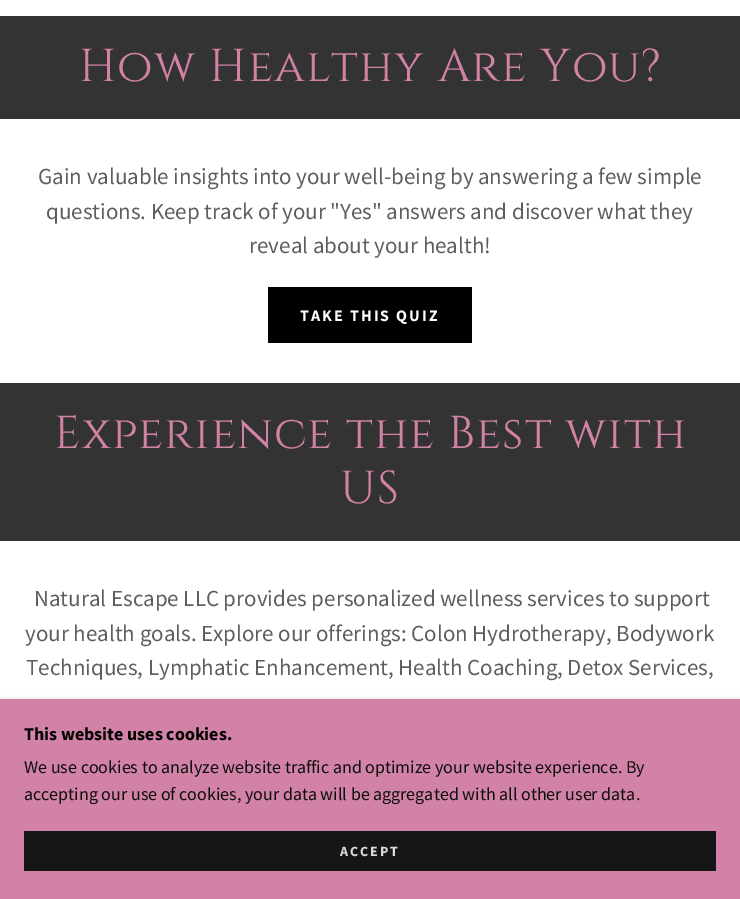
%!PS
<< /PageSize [740 899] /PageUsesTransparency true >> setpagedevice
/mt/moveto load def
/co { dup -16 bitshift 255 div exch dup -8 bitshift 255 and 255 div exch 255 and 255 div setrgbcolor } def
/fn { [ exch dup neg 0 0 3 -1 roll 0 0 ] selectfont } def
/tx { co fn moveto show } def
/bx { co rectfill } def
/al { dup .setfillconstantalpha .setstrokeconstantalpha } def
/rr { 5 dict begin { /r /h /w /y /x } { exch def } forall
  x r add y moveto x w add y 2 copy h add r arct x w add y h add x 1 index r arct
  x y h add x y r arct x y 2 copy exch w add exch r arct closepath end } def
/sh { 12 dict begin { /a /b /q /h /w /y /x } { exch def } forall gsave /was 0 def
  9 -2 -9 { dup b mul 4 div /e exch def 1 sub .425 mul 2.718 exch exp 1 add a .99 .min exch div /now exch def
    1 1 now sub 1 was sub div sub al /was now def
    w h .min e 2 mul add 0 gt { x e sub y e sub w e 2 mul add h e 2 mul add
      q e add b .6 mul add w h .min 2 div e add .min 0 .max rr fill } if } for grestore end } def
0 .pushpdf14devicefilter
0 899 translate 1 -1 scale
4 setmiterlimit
0 0 740 899 16#FFFFFF bx
0 16 740 103 16#333333 bx
268 287 204 56 16#000000 bx
0 383 740 158 16#333333 bx
16#000000 co
0 701 740 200 0 3 .3 sh
0 699 740 200 16#D282A6 bx
24 831 692 40 16#161616 bx
/Cinzel-Regular 46 fn
16#D282A6 co
79 81 mt 1.1 0 (How Healthy Are You?) ashow
(Gain valuable insights into your well-being by answering a few simple) 38 184 /SourceSansPro-Regular 23 16#5E5E5E tx
(questions. Keep track of your "Yes" answers and discover what they) 46 219 /SourceSansPro-Regular 23 16#5E5E5E tx
(reveal about your health!) 249 253 /SourceSansPro-Regular 23 16#5E5E5E tx
/SourceSansPro-Bold 16 fn
16#FFFFFF co
300 321 mt 2 0 (TAKE THIS QUIZ) ashow
/Cinzel-Regular 46 fn
16#D282A6 co
54 448 mt 1.1 0 (Experience the Best with) ashow
340 503 mt 1.1 0 (US) ashow
(Natural Escape LLC provides personalized wellness services to support) 34 606 /SourceSansPro-Regular 23 16#5E5E5E tx
(your health goals. Explore our offerings: Colon Hydrotherapy, Bodywork) 25 641 /SourceSansPro-Regular 23 16#5E5E5E tx
(Techniques, Lymphatic Enhancement, Health Coaching, Detox Services,) 26 675 /SourceSansPro-Regular 23 16#5E5E5E tx
(This website uses cookies.) 24 740 /SourceSansPro-Bold 18 16#000000 tx
(We use cookies to analyze website traffic and optimize your website experience. By) 24 773 /SourceSansPro-Regular 18 16#0E0D0D tx
(accepting our use of cookies, your data will be aggregated with all other user data.) 24 800 /SourceSansPro-Regular 18 16#0E0D0D tx
/SourceSansPro-Bold 14 fn
16#DBDBDB co
340 856 mt 2 0 (ACCEPT) ashow
.poppdf14devicefilter showpage
